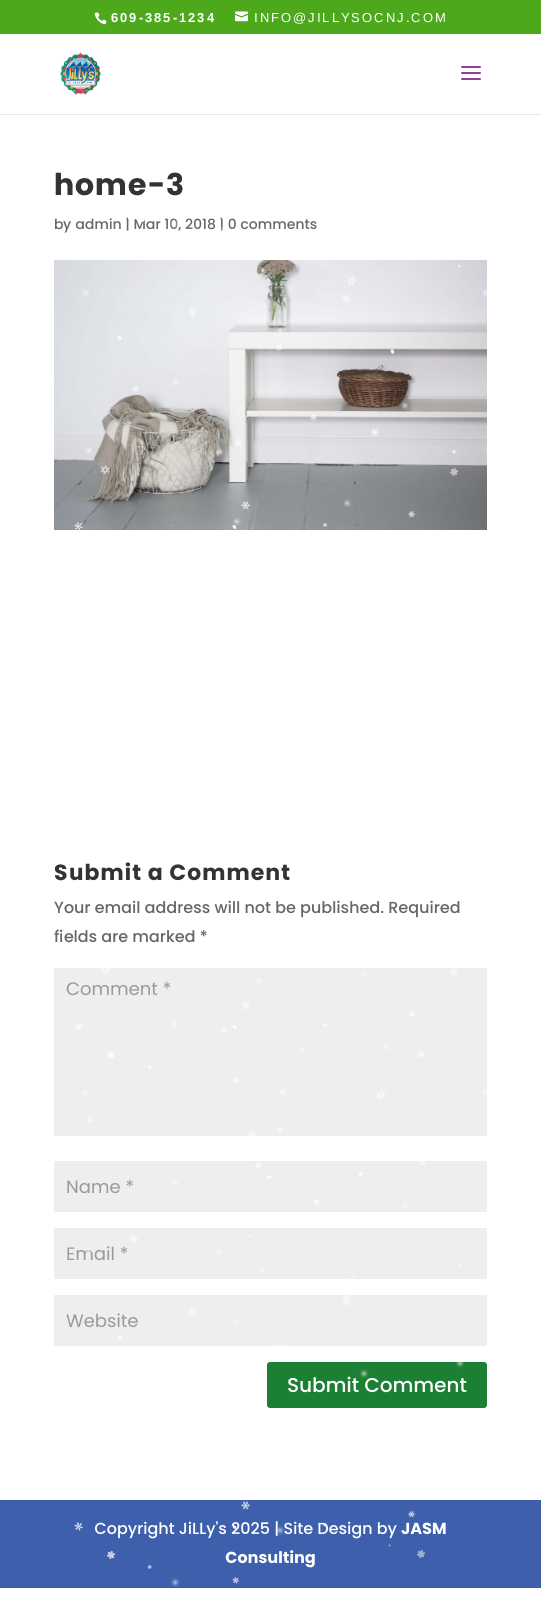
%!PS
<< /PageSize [541 1601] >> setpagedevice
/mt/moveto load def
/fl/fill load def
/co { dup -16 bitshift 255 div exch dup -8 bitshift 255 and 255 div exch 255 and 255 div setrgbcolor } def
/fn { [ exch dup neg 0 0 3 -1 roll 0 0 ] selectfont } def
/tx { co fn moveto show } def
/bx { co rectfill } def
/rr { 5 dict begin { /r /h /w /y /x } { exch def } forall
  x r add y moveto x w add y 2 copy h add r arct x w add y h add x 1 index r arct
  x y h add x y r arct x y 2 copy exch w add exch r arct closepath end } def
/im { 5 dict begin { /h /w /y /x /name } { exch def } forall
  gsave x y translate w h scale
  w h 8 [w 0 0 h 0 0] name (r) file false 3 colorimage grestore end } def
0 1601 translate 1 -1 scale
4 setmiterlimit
0 0 541 1601 16#FFFFFF bx
0 0 541 34 16#4DA81C bx
(media/1.raw) 94 12 13 13 im
(media/2.raw) 235 11 13 11 im
0 114 541 1 16#E6E6E6 bx
(media/3.raw) 60 52 41 43 im
(media/4.raw) 461 66 20 14 im
(media/5.raw) 54 260 433 270 im
54 968 433 168 16#EEEEEE bx
54 1161 433 51 16#EEEEEE bx
54 1228 433 51 16#EEEEEE bx
54 1295 433 51 16#EEEEEE bx
16#1C8034 co
267 1362 220 46 3 rr fl
0 1500 541 88 16#3E60AC bx
/LiberationSans-Bold 13 fn
16#FFFFFF co
111 22 mt 2 0 (609-385-1234) ashow
/LiberationSans-Regular 13 fn
254 22 mt 2 0 (INFO@JILLYSOCNJ.COM) ashow
/Poppins-Bold 30 fn
16#333333 co
54 195 mt 1 0 (home-3) ashow
(by admin | Mar 10, 2018 | 0 comments) 54 229 /Poppins-Medium 14 16#666666 tx
/Poppins-Bold 22 fn
16#333333 co
54 880 mt 1 0 (Submit a Comment) ashow
(Your email address will not be published. Required) 54 913 /Poppins-Medium 16 16#666666 tx
(fields are marked *) 54 942 /Poppins-Medium 16 16#666666 tx
(Comment *) 66 995 /Poppins-Regular 18 16#999999 tx
(Name *) 66 1193 /Poppins-Regular 18 16#999999 tx
(Email *) 66 1260 /Poppins-Regular 18 16#999999 tx
(Website) 66 1327 /Poppins-Regular 18 16#999999 tx
(Submit Comment) 287 1392 /Poppins-Medium 20 16#FFFFFF tx
(Copyright JiLLy's 2025 | Site Design by) 94 1534 /Poppins-Medium 16 16#FFFFFF tx
(JASM) 401 1534 /Poppins-Bold 16 16#FFFFFF tx
(Consulting) 225 1563 /Poppins-Bold 16 16#FFFFFF tx
(media/6.raw) 74 219 413 1368 im
showpage
